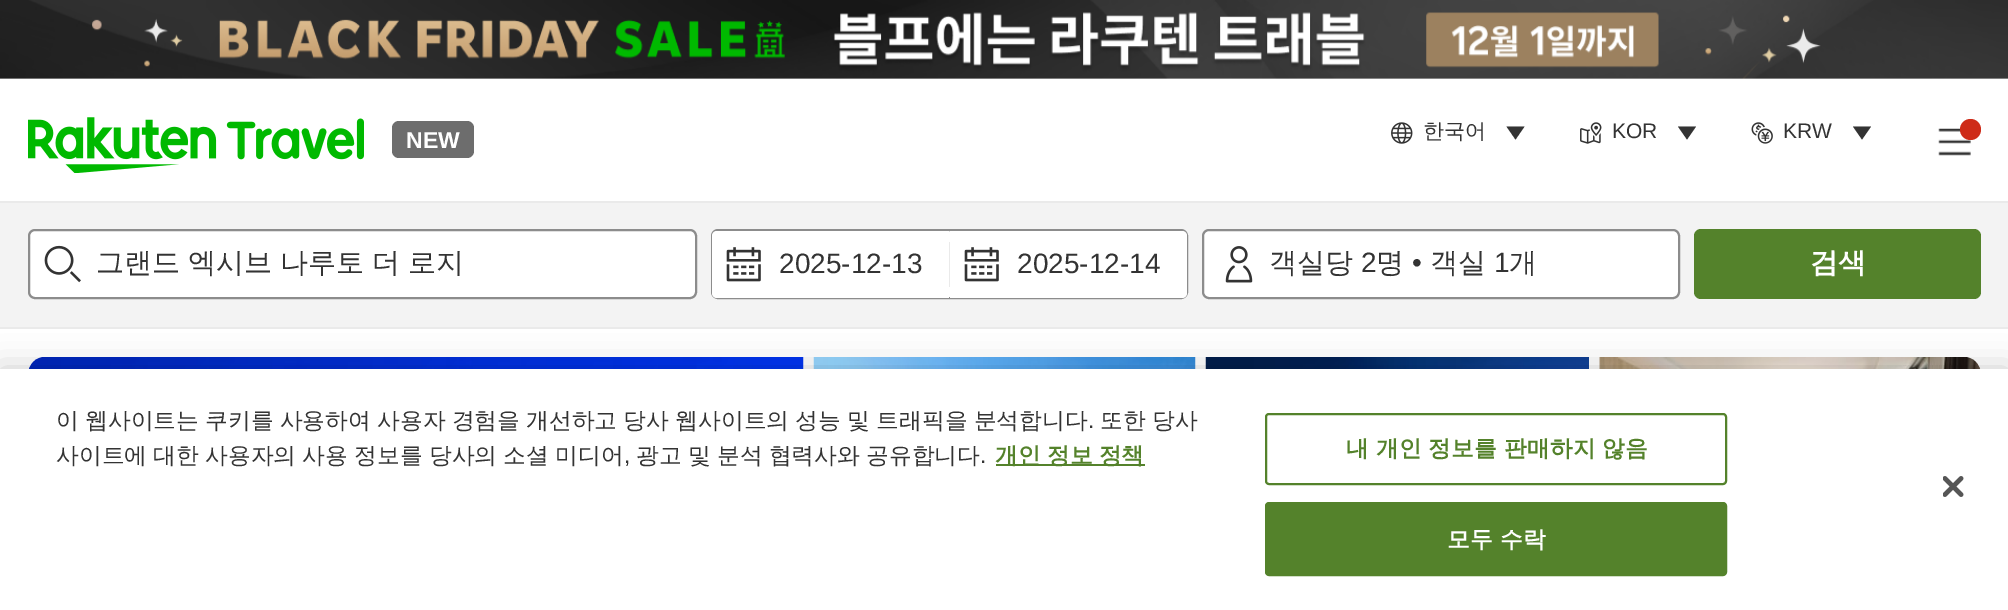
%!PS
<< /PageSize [2008 610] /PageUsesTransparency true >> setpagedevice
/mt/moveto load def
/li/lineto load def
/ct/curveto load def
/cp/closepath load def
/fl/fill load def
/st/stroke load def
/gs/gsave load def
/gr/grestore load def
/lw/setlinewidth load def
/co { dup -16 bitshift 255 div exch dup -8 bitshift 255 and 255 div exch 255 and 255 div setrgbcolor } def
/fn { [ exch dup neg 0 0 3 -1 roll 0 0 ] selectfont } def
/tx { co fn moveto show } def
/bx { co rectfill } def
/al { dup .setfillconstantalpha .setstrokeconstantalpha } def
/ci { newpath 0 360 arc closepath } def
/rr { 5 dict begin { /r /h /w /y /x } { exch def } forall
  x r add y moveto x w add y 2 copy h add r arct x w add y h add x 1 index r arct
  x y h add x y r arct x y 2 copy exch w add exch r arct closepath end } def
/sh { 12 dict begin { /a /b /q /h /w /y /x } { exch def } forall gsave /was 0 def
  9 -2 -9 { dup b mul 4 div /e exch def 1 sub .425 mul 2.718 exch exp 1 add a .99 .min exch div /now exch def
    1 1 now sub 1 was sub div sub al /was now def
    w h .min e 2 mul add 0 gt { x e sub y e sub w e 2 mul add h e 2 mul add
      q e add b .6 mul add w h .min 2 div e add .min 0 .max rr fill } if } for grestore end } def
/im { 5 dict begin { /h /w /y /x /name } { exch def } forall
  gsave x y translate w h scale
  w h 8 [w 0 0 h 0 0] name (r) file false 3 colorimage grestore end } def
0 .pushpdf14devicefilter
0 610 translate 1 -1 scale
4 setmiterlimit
0 0 2008 610 16#FFFFFF bx
(media/1.raw) 0 0 2008 79 im
0 201 2008 2 16#EAEAEA bx
(media/2.raw) 28 117 336 56 im
16#6D6D6D co
392 121 82 37 7 rr fl
(media/3.raw) 1391 122 22 22 im
16#333333 co
1515.5 139.5 mt 1506.5 126.5 li 1524.5 126.5 li cp eofill
(media/4.raw) 1580 122 22 22 im
1687 139.5 mt 1678 126.5 li 1696 126.5 li cp eofill
(media/5.raw) 1751 122 22 22 im
1862 139.5 mt 1853 126.5 li 1871 126.5 li cp eofill
(media/6.raw) 1938 128 33 28 im
16#CE2B18 co
1970.5 129.5 10.5 ci fl
0 203 2008 124 16#F3F3F3 bx
0 327 2008 2 16#EAEAEA bx
16#FFFFFF co
29 230 667 68 6 rr gs fl gr
16#8C8C8C co
2 lw
st
(media/7.raw) 44 245 37 38 im
16#FFFFFF co
712 230 475 68 6 rr gs fl gr
16#8C8C8C co
st
16#FFFFFF co
717 231 mt 949 231 li 949 298 li 717 298 li 714 298 712 296 712 293 ct 712 236 li 712 233 714 231 717 231 ct cp fl
(media/8.raw) 726 247 35 35 im
949 242 1 45 16#EAEAEA bx
16#FFFFFF co
950 231 mt 1182 231 li 1185 231 1187 233 1187 236 ct 1187 293 li 1187 296 1185 298 1182 298 ct 950 298 li cp fl
(media/8.raw) 964 247 35 35 im
1203 230 476 68 6 rr gs fl gr
16#8C8C8C co
st
(media/9.raw) 1225 246 28 37 im
16#54822B co
1694 229 287 70 7 rr fl
(media/10.raw) 28 357 776 12 im
(media/11.raw) 813 357 383 12 im
(media/12.raw) 1205 357 384 12 im
(media/13.raw) 1599 357 382 12 im
16#000000 co
0 369 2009 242 0 16 .2 sh
0 369 2008 241 16#FFFFFF bx
996 464 149 2 16#54822B bx
1266 414 460 70 3 rr st
1266 503 460 72 3 rr gs fl gr
st
(media/14.raw) 1943 476 21 21 im
(NEW) 406 148 /LiberationSans-Bold 23 16#FFFFFF tx
(한국어) 1423 138 /WenQuanYiZenHei-Medium 21 16#333333 tx
(KOR) 1612 138 /LiberationSans-Regular 21 16#333333 tx
(KRW) 1783 138 /LiberationSans-Regular 21 16#333333 tx
/WenQuanYiZenHei-Medium 28 fn
96 272 mt -.5 0 32 (그랜드 엑시브 나루토 더 로지) widthshow
(2025-12-13) 779 273 /LiberationSans-Regular 28 16#333333 tx
(2025-12-14) 1017 273 /LiberationSans-Regular 28 16#333333 tx
(객실당) 1269 272 /WenQuanYiZenHei-Medium 28 16#333333 tx
(2) 1361 272 /LiberationSans-Regular 28 16#333333 tx
(명) 1376 272 /WenQuanYiZenHei-Medium 28 16#333333 tx
(•) 1412 272 /LiberationSans-Regular 28 16#333333 tx
(객실) 1430 272 /WenQuanYiZenHei-Medium 28 16#333333 tx
(1) 1494 272 /LiberationSans-Regular 28 16#333333 tx
(개) 1509 272 /WenQuanYiZenHei-Medium 28 16#333333 tx
(검색) 1810 272 /WenQuanYiZenHei-Bold 28 16#FFFFFF tx
/WenQuanYiZenHei-Medium 22.75 fn
16#333333 co
56 428 mt -.5 0 32 (이 웹사이트는 쿠키를 사용하여 사용자 경험을 개선하고 당사 웹사이트의 성능 및 트래픽을 분석합니다) widthshow
(.) 1088 428 /LiberationSans-Regular 22.75 16#333333 tx
/WenQuanYiZenHei-Medium 22.75 fn
1100 428 mt -.5 0 32 (또한 당사) widthshow
56 463 mt -.5 0 32 (사이트에 대한 사용자의 사용 정보를 당사의 소셜 미디어) widthshow
(,) 624 463 /LiberationSans-Regular 22.75 16#333333 tx
/WenQuanYiZenHei-Medium 22.75 fn
636 463 mt -.5 0 32 (광고 및 분석 협력사와 공유합니다) widthshow
(.) 980 463 /LiberationSans-Regular 22.75 16#333333 tx
/WenQuanYiZenHei-Bold 22.75 fn
16#54822B co
995 463 mt -.5 0 32 (개인 정보 정책) widthshow
1346 456 mt -.5 0 32 .25 0 (내 개인 정보를 판매하지 않음) awidthshow
16#FFFFFF co
1447 547 mt -.5 0 32 .25 0 (모두 수락) awidthshow
.poppdf14devicefilter showpage
